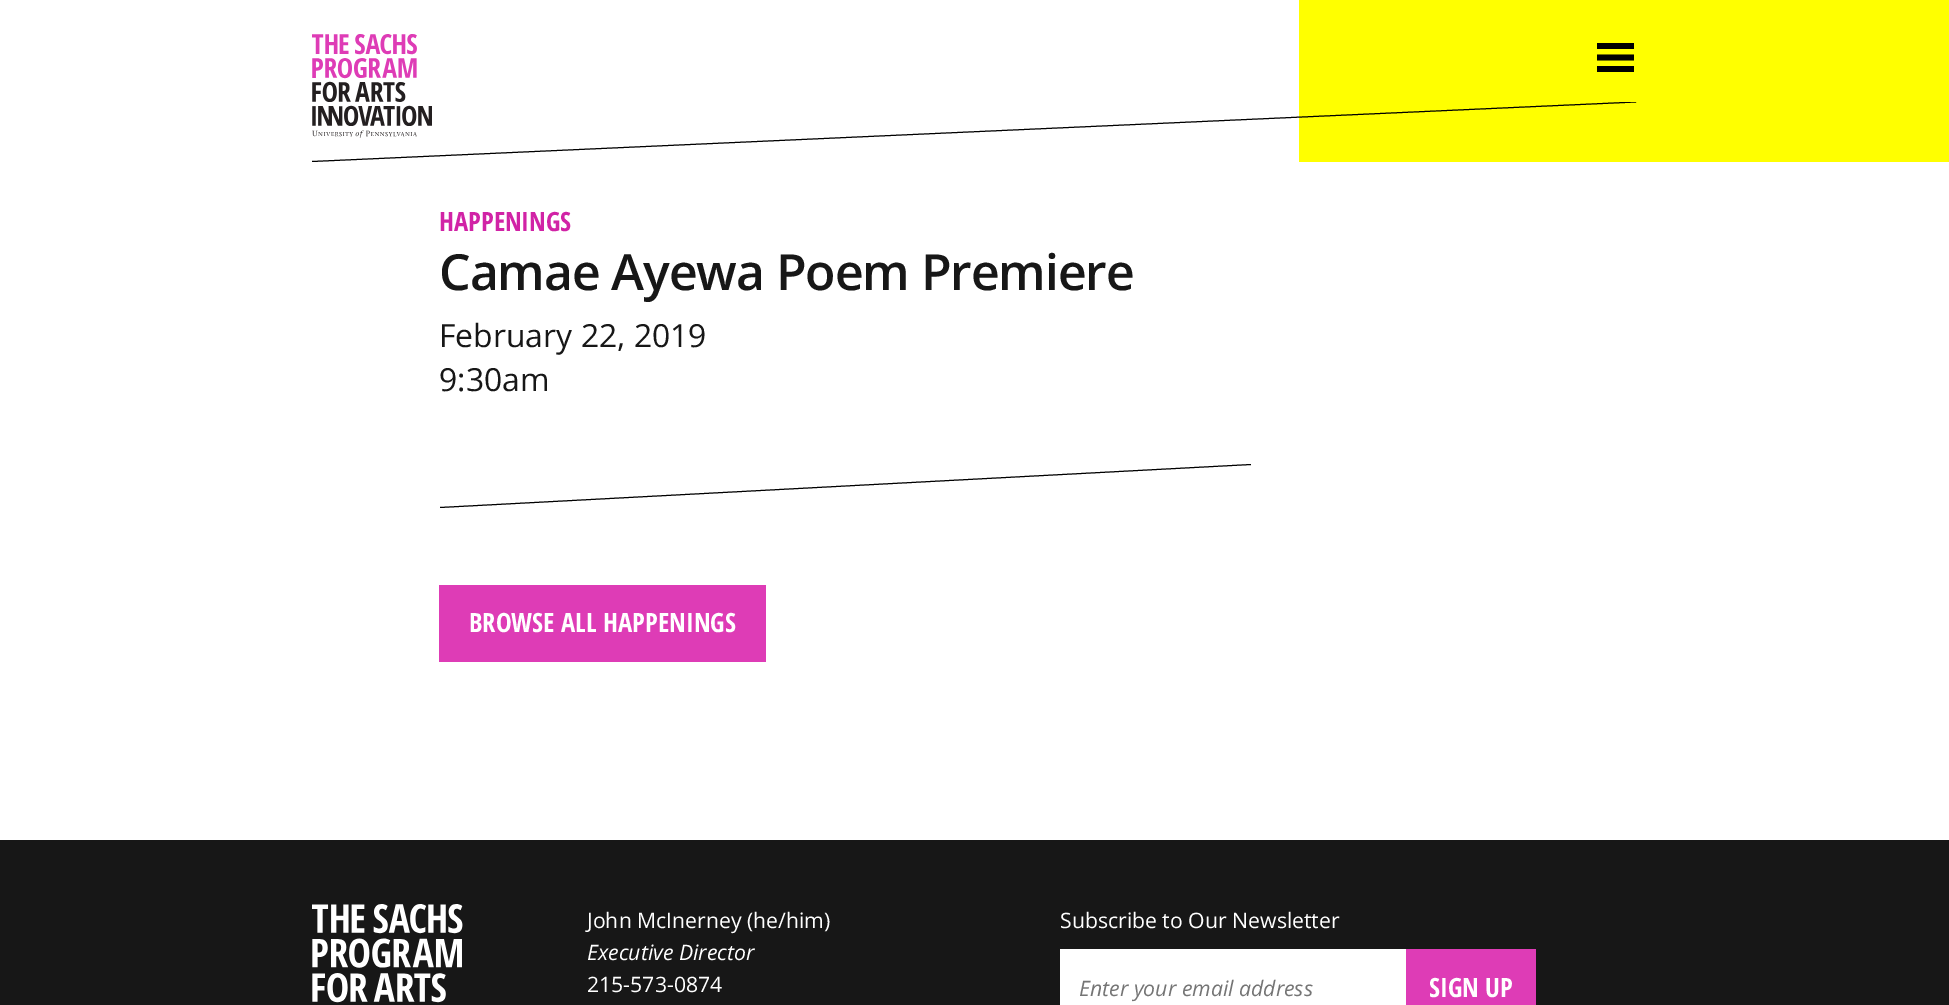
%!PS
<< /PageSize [1949 1005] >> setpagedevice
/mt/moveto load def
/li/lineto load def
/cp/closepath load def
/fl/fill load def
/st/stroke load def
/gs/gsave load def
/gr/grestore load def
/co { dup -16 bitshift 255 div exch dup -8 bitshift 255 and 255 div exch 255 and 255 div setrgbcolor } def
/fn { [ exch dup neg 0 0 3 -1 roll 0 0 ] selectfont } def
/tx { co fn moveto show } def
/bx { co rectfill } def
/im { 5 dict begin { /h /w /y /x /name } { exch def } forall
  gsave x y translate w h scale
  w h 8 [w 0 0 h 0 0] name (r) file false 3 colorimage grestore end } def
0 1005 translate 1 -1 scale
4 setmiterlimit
0 0 1949 1005 16#FFFFFF bx
1299 0 650 162 16#FFFF00 bx
gs
312 102 1325 60 rectclip
16#000000 co
1636 102 mt 312 161.5 li st
gr
(media/1.raw) 312 34 120 104 im
gs
1597 43 37 29 rectclip
16#000000 co
1635 49 mt 1597 49 li 1597 43 li 1635 43 li cp 1635 54.5 mt 1597 54.5 li 1597 60.5 li 1635 60.5 li cp 1635 66 mt 1597 66 li 1597 72 li 1635 72 li cp fl
gr
16#000000 co
440 507 mt 1251 464 li 1251 465 li 440 508 li cp fl
439 585 327 77 16#DE3CB6 bx
0 840 1949 165 16#171717 bx
(media/2.raw) 312 904 151 99 im
1060 949 346 56 16#FFFFFF bx
1406 949 130 56 16#DE3CB6 bx
(HAPPENINGS) 439 231 /OpenSansCondensed-Bold 26.5 16#D123A6 tx
/OpenSans-SemiBold 49.9 fn
16#171717 co
439 290 mt -1.1 0 (Camae Ayewa Poem Premiere) ashow
(February 22, 2019) 439 347 /OpenSans-Regular 31.9 16#171717 tx
(9:30am) 439 391 /OpenSans-Regular 31.9 16#171717 tx
(BROWSE ALL HAPPENINGS) 469 632 /OpenSansCondensed-Bold 26.5 16#FFFFFF tx
(John McInerney \(he/him\)) 587 928 /OpenSans-Regular 21.25 16#FFFFFF tx
(Executive Director) 587 960 /OpenSans-Italic 21.25 16#FFFFFF tx
(215-573-0874) 587 992 /OpenSans-Regular 21.25 16#FFFFFF tx
(Subscribe to Our Newsletter) 1060 928 /OpenSans-Regular 21.25 16#FFFFFF tx
(Enter your email address) 1079 996 /OpenSans-Italic 21.25 16#757575 tx
(SIGN UP) 1429 997 /OpenSansCondensed-Bold 26.5 16#FFFFFF tx
showpage
